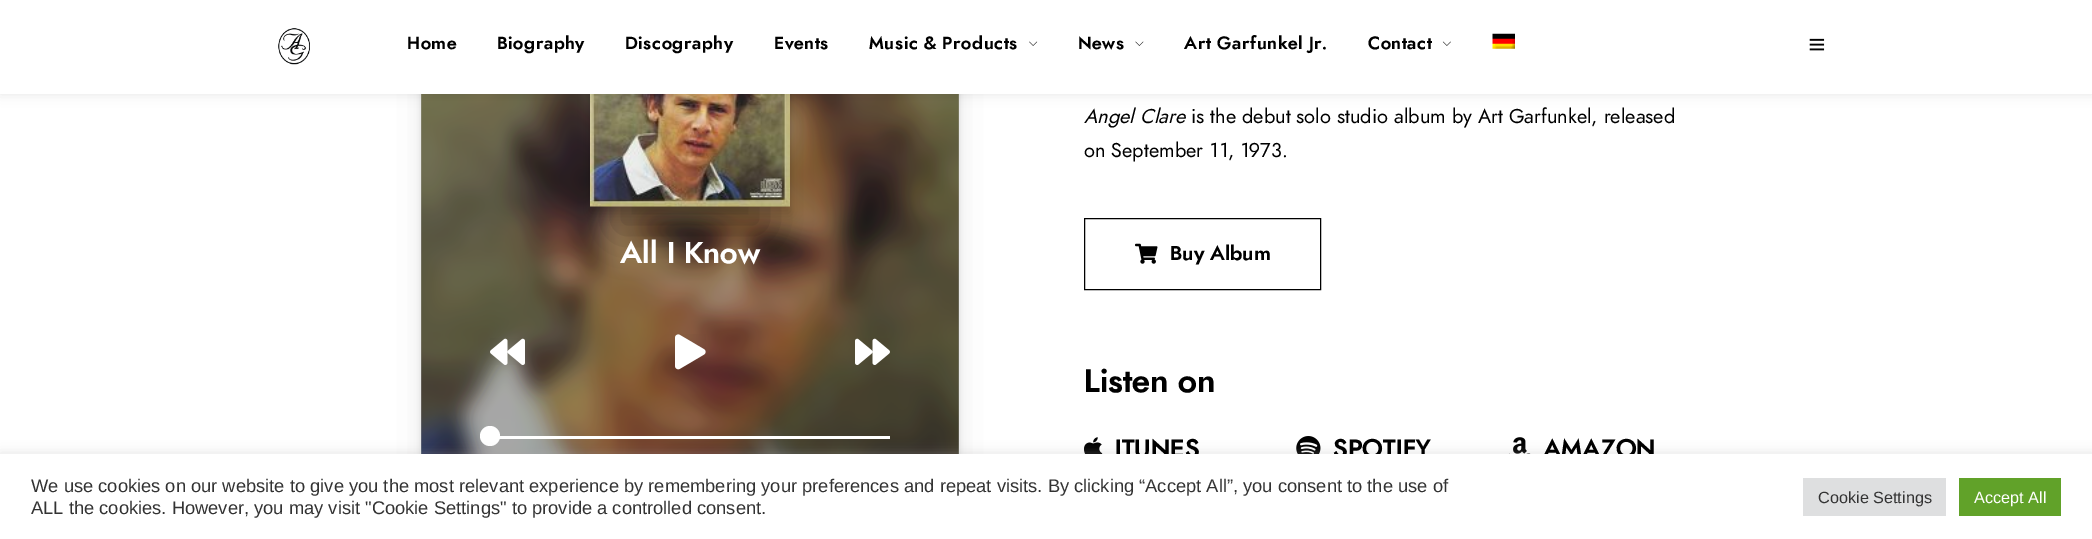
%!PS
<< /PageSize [2092 539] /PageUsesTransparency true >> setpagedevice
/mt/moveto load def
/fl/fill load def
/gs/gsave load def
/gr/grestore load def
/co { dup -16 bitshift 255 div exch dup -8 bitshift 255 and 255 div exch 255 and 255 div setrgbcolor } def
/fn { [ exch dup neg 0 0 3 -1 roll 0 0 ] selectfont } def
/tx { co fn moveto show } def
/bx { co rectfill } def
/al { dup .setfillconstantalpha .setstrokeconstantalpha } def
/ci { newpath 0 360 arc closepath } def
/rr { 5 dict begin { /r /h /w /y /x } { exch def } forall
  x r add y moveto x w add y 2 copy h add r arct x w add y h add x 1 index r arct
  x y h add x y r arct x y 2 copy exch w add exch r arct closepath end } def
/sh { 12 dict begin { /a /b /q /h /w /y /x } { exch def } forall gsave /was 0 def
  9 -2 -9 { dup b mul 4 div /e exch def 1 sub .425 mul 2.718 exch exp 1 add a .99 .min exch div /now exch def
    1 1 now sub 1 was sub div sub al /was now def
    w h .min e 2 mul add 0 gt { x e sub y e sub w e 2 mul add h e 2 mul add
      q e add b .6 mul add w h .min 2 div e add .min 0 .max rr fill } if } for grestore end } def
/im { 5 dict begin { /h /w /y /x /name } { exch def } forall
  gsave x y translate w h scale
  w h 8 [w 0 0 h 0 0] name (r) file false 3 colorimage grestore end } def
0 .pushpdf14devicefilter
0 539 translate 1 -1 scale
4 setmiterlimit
0 0 2092 539 16#FFFFFF bx
16#000000 co
446 5 488 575 0 22 .2 sh
421 -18 538 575 0 6 .1 sh
(media/7.raw) 421 94 538 360 im
gs
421 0 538 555 rectclip
396 -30 588 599 0 10 .3 sh
gr
615 81 150 150 0 22 .3 sh
590 13 200 200 0 6 .2 sh
(media/8.raw) 590 94 200 113 im
16#010101 co
0 0 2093 94 0 6 .1 sh
0 0 2092 94 16#FFFFFF bx
(media/1.raw) 278 28 32 37 im
(media/2.raw) 1029 41 9 5 im
(media/3.raw) 1135 41 9 5 im
(media/4.raw) 1442 41 9 5 im
(media/5.raw) 1492 33 23 16 im
(media/6.raw) 1809 38 16 13 im
(media/9.raw) 490 338 35 27 im
(media/10.raw) 675 334 31 36 im
(media/11.raw) 855 338 35 27 im
499 436 391 3 16#FFFFFF bx
490 436 10 ci fl
16#000000 co
1084.5 218.5 236 71 rectstroke
(media/12.raw) 1135 243 23 21 im
(media/13.raw) 1084 437 19 17 im
(media/14.raw) 1296 436 25 18 im
(media/15.raw) 1509 437 22 17 im
16#ACABAB co
0 453 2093 86 0 6 .3 sh
/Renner-Bold 17.5 fn
16#000000 co
407 49 mt .6 0 (Home) ashow
497 49 mt .6 0 (Biography) ashow
625 49 mt .6 0 (Discography) ashow
774 49 mt .6 0 (Events) ashow
869 49 mt .6 0 (Music & Products) ashow
1078 49 mt .6 0 (News) ashow
1184 49 mt .6 0 (Art Garfunkel Jr.) ashow
1368 49 mt .6 0 (Contact) ashow
(All I Know) 620 263 /Renner-Bold 30 16#FFFFFF tx
(Angel Clare) 1084 123 /Renner-Italic 20 16#000000 tx
(is the debut solo studio album by Art Garfunkel, released) 1191 123 /Renner-Regular 20 16#000000 tx
(on September 11, 1973.) 1084 157 /Renner-Regular 20 16#000000 tx
(Buy Album) 1170 260 /Renner-Bold 20 16#000000 tx
(Listen on) 1084 392 /Renner-Bold 32.5 16#000000 tx
(ITUNES) 1115 457 /Renner-Bold 25 16#000000 tx
(SPOTIFY) 1333 457 /Renner-Bold 25 16#000000 tx
(AMAZON) 1543 457 /Renner-Bold 25 16#000000 tx
0 454 2092 85 16#FFFFFF bx
(We use cookies on our website to give you the most relevant experience by remembering your preferences and repeat visits. By clicking “Accept All”, you consent to the use of) 31 492 /LiberationSans-Regular 18.33 16#333333 tx
(ALL the cookies. However, you may visit "Cookie Settings" to provide a controlled consent.) 31 514 /LiberationSans-Regular 18.33 16#333333 tx
1803 478 143 38 16#DEDFE0 bx
(Cookie Settings) 1818 503 /LiberationSans-Regular 16.25 16#333333 tx
1959 478 102 38 16#61A229 bx
(Accept All) 1974 503 /LiberationSans-Regular 16.25 16#FFFFFF tx
.poppdf14devicefilter showpage
